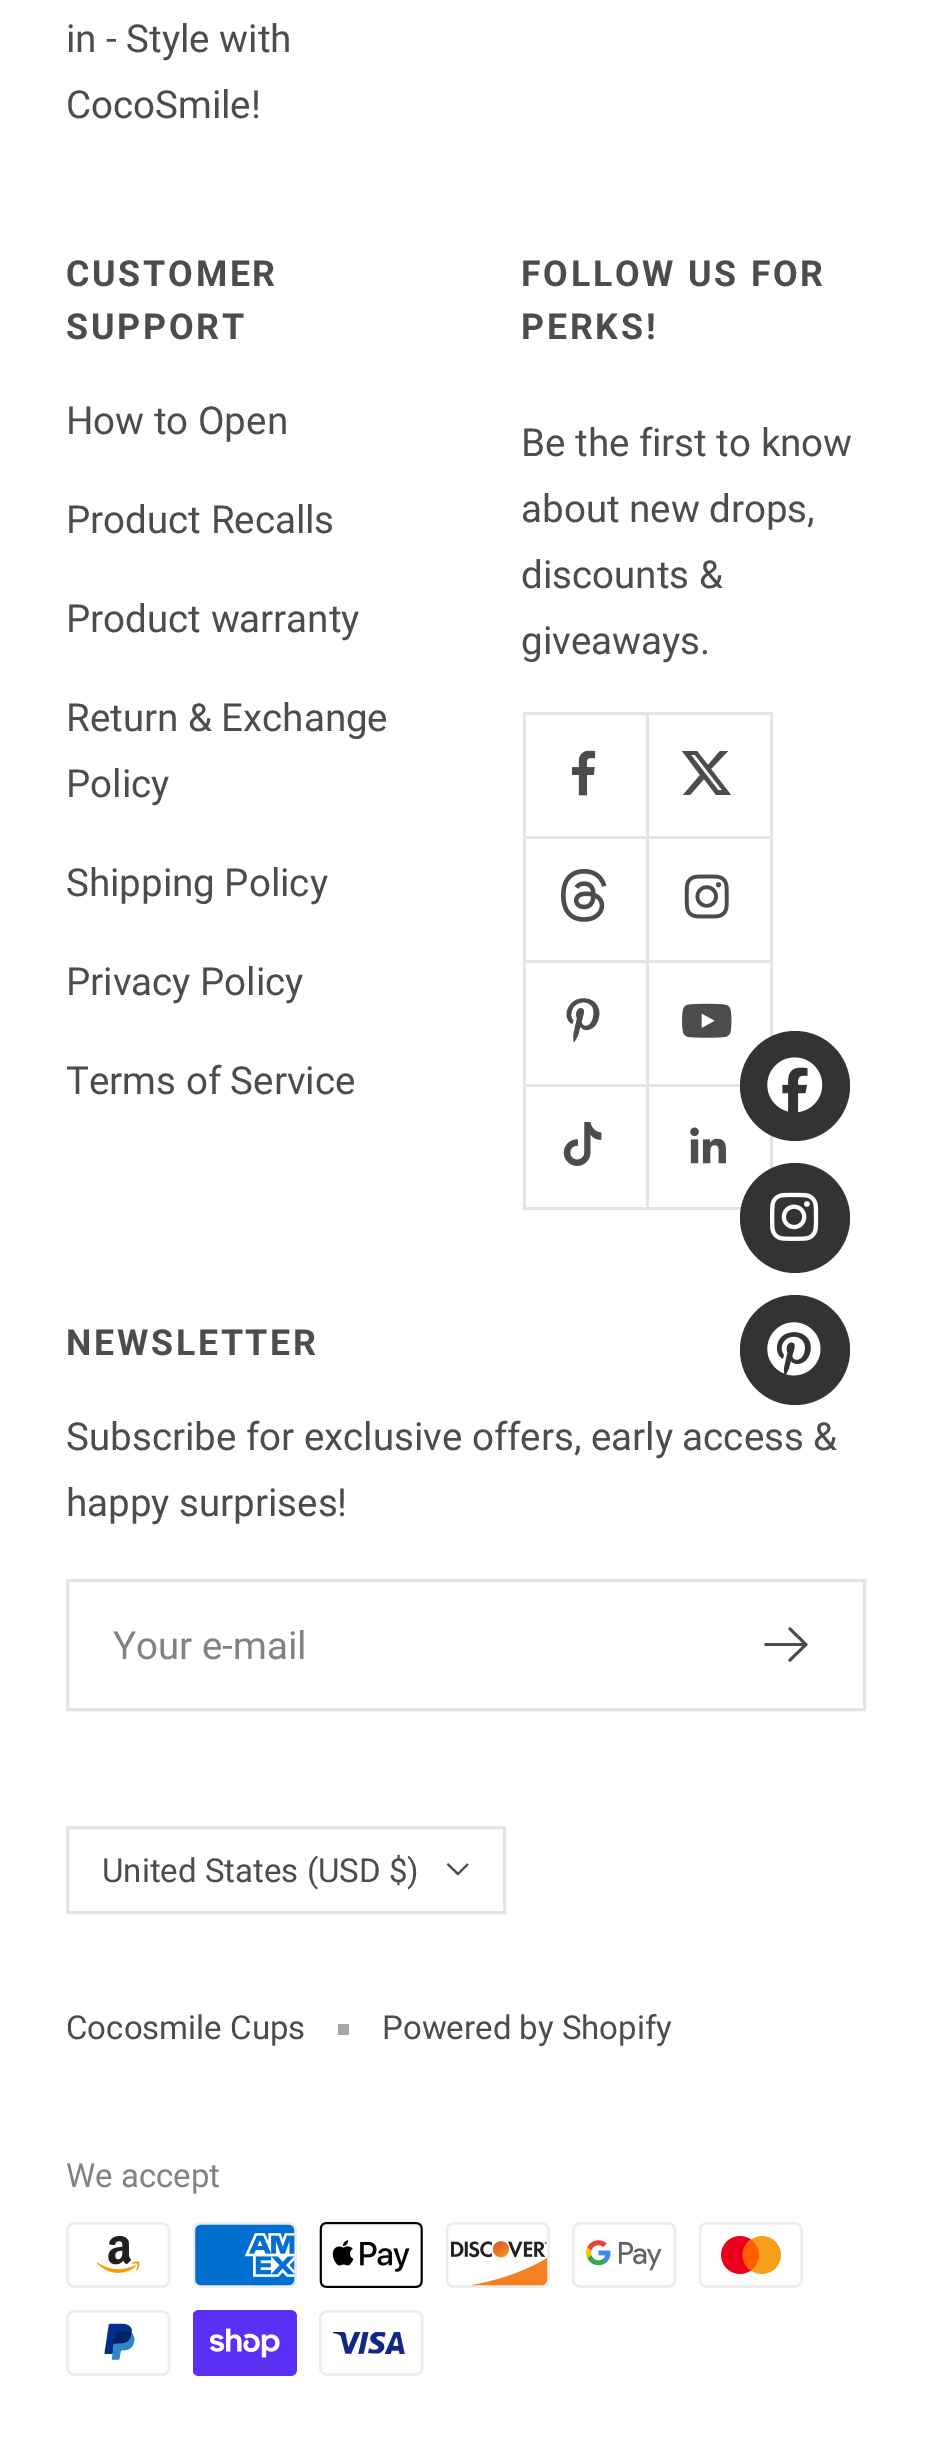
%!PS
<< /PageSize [932 2454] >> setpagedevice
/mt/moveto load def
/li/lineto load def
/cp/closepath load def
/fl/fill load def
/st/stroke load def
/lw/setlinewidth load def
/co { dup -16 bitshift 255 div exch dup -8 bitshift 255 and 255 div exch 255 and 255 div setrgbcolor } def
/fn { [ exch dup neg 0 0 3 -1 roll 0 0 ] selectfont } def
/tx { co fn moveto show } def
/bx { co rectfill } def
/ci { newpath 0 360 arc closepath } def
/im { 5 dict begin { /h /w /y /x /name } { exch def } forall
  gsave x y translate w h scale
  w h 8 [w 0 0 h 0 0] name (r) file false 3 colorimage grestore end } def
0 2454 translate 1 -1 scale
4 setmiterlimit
0 0 932 2454 16#FFFFFF bx
16#E4E4E4 co
525 836 mt 525 839 li 649 839 li 649 715 li 646 715 li 646 836 li cp fl
523 836 2 3 16#E4E4E4 bx
525 712 mt 646 712 li 646 836 li 649 836 li 649 712 li cp fl
523 712 247 3 16#E4E4E4 bx
523 712 3 124 16#E4E4E4 bx
(media/1.raw) 572 750 24 46 im
649 836 mt 649 839 li 773 839 li 773 715 li 770 715 li 770 836 li cp fl
649 712 mt 770 712 li 770 836 li 773 836 li 773 712 li cp fl
16#4B4C4E co
720 751 mt 728 751 li 711 769 li 731 795 li 716 795 li 704 779 li 690 795 li 683 795 li 700 775 li 682 751 li 697 751 li 708 765 li cp 718 790 mt 722 790 li 695 755 li 691 755 li cp fl
16#E4E4E4 co
525 960 mt 525 963 li 649 963 li 649 839 li 646 839 li 646 960 li cp fl
523 960 2 3 16#E4E4E4 bx
523 836 3 124 16#E4E4E4 bx
(media/2.raw) 561 869 46 53 im
649 960 mt 649 963 li 773 963 li 773 839 li 770 839 li 770 960 li cp fl
(media/3.raw) 684 874 45 45 im
525 1084 mt 525 1086 li 649 1086 li 649 963 li 646 963 li 646 1084 li cp fl
523 960 3 124 16#E4E4E4 bx
(media/4.raw) 566 998 34 45 im
649 1084 mt 649 1086 li 773 1086 li 773 963 li 770 963 li 770 1084 li cp fl
(media/5.raw) 682 1003 50 35 im
525 1207 mt 525 1210 li 649 1210 li 649 1086 li 646 1086 li 646 1207 li cp fl
523 1207 2 3 16#E4E4E4 bx
523 1084 123 3 16#E4E4E4 bx
523 1084 3 123 16#E4E4E4 bx
(media/6.raw) 563 1122 39 44 im
649 1207 mt 649 1210 li 773 1210 li 773 1086 li 770 1086 li 770 1207 li cp fl
646 1086 95 1 16#E4E4E4 bx
(media/7.raw) 690 1127 36 37 im
3 lw
67.5 1580.5 797 129 rectstroke
16#4B4C4E co
2.8 lw
764.5 1644.5 mt 806 1644.5 li 789 1628 mt 806 1644.5 li 789 1661 li st
16#E4E4E4 co
3 lw
67.5 1827.5 437 85 rectstroke
16#4B4C4E co
2.1 lw
447.5 1864 mt 458 1874 li 468 1864 li st
338 2024 11 11 16#A5A6A7 bx
(media/8.raw) 66 2222 105 66 im
(media/9.raw) 193 2222 104 66 im
(media/10.raw) 319 2222 104 66 im
(media/11.raw) 446 2222 104 66 im
(media/12.raw) 572 2222 105 66 im
(media/13.raw) 699 2222 104 66 im
(media/14.raw) 66 2310 105 66 im
(media/15.raw) 193 2310 104 66 im
(media/16.raw) 319 2310 105 66 im
16#333333 co
795 1086 55 ci fl
(media/17.raw) 767 1057 56 56 im
795 1218 55 ci fl
(media/18.raw) 770 1192 49 49 im
795 1350 55 ci fl
(media/19.raw) 767 1322 54 54 im
(in - Style with) 66 52 /Roboto-Regular 38.5 16#4B4C4E tx
(CocoSmile!) 66 118 /Roboto-Regular 38.5 16#4B4C4E tx
/Roboto-Bold 35.75 fn
66 286 mt 2.75 0 (CUSTOMER) ashow
66 339 mt 2.75 0 (SUPPORT) ashow
(How to Open) 66 434 /Roboto-Regular 38.5 16#4B4C4E tx
(Product Recalls) 66 533 /Roboto-Regular 38.5 16#4B4C4E tx
(Product warranty) 66 632 /Roboto-Regular 38.5 16#4B4C4E tx
(Return & Exchange) 66 731 /Roboto-Regular 38.5 16#4B4C4E tx
(Policy) 66 797 /Roboto-Regular 38.5 16#4B4C4E tx
(Shipping Policy) 66 896 /Roboto-Regular 38.5 16#4B4C4E tx
(Privacy Policy) 66 995 /Roboto-Regular 38.5 16#4B4C4E tx
(Terms of Service) 66 1094 /Roboto-Regular 38.5 16#4B4C4E tx
/Roboto-Bold 35.75 fn
521 286 mt 2.75 0 (FOLLOW US FOR) ashow
521 339 mt 2.75 0 (PERKS!) ashow
(Be the first to know) 521 456 /Roboto-Regular 38.5 16#4B4C4E tx
(about new drops,) 521 522 /Roboto-Regular 38.5 16#4B4C4E tx
(discounts &) 521 588 /Roboto-Regular 38.5 16#4B4C4E tx
(giveaways.) 521 654 /Roboto-Regular 38.5 16#4B4C4E tx
/Roboto-Bold 35.75 fn
66 1355 mt 2.75 0 (NEWSLETTER) ashow
(Subscribe for exclusive offers, early access &) 66 1450 /Roboto-Regular 38.5 16#4B4C4E tx
(happy surprises!) 66 1516 /Roboto-Regular 38.5 16#4B4C4E tx
(Your e-mail) 113 1659 /Roboto-Regular 38.5 16#818283 tx
(United States \(USD $\)) 102 1882 /Roboto-Regular 33 16#4B4C4E tx
(Cocosmile Cups) 66 2039 /Roboto-Regular 33 16#4B4C4E tx
(Powered by Shopify) 382 2039 /Roboto-Regular 33 16#4B4C4E tx
(We accept) 66 2187 /Roboto-Regular 33 16#818283 tx
showpage
